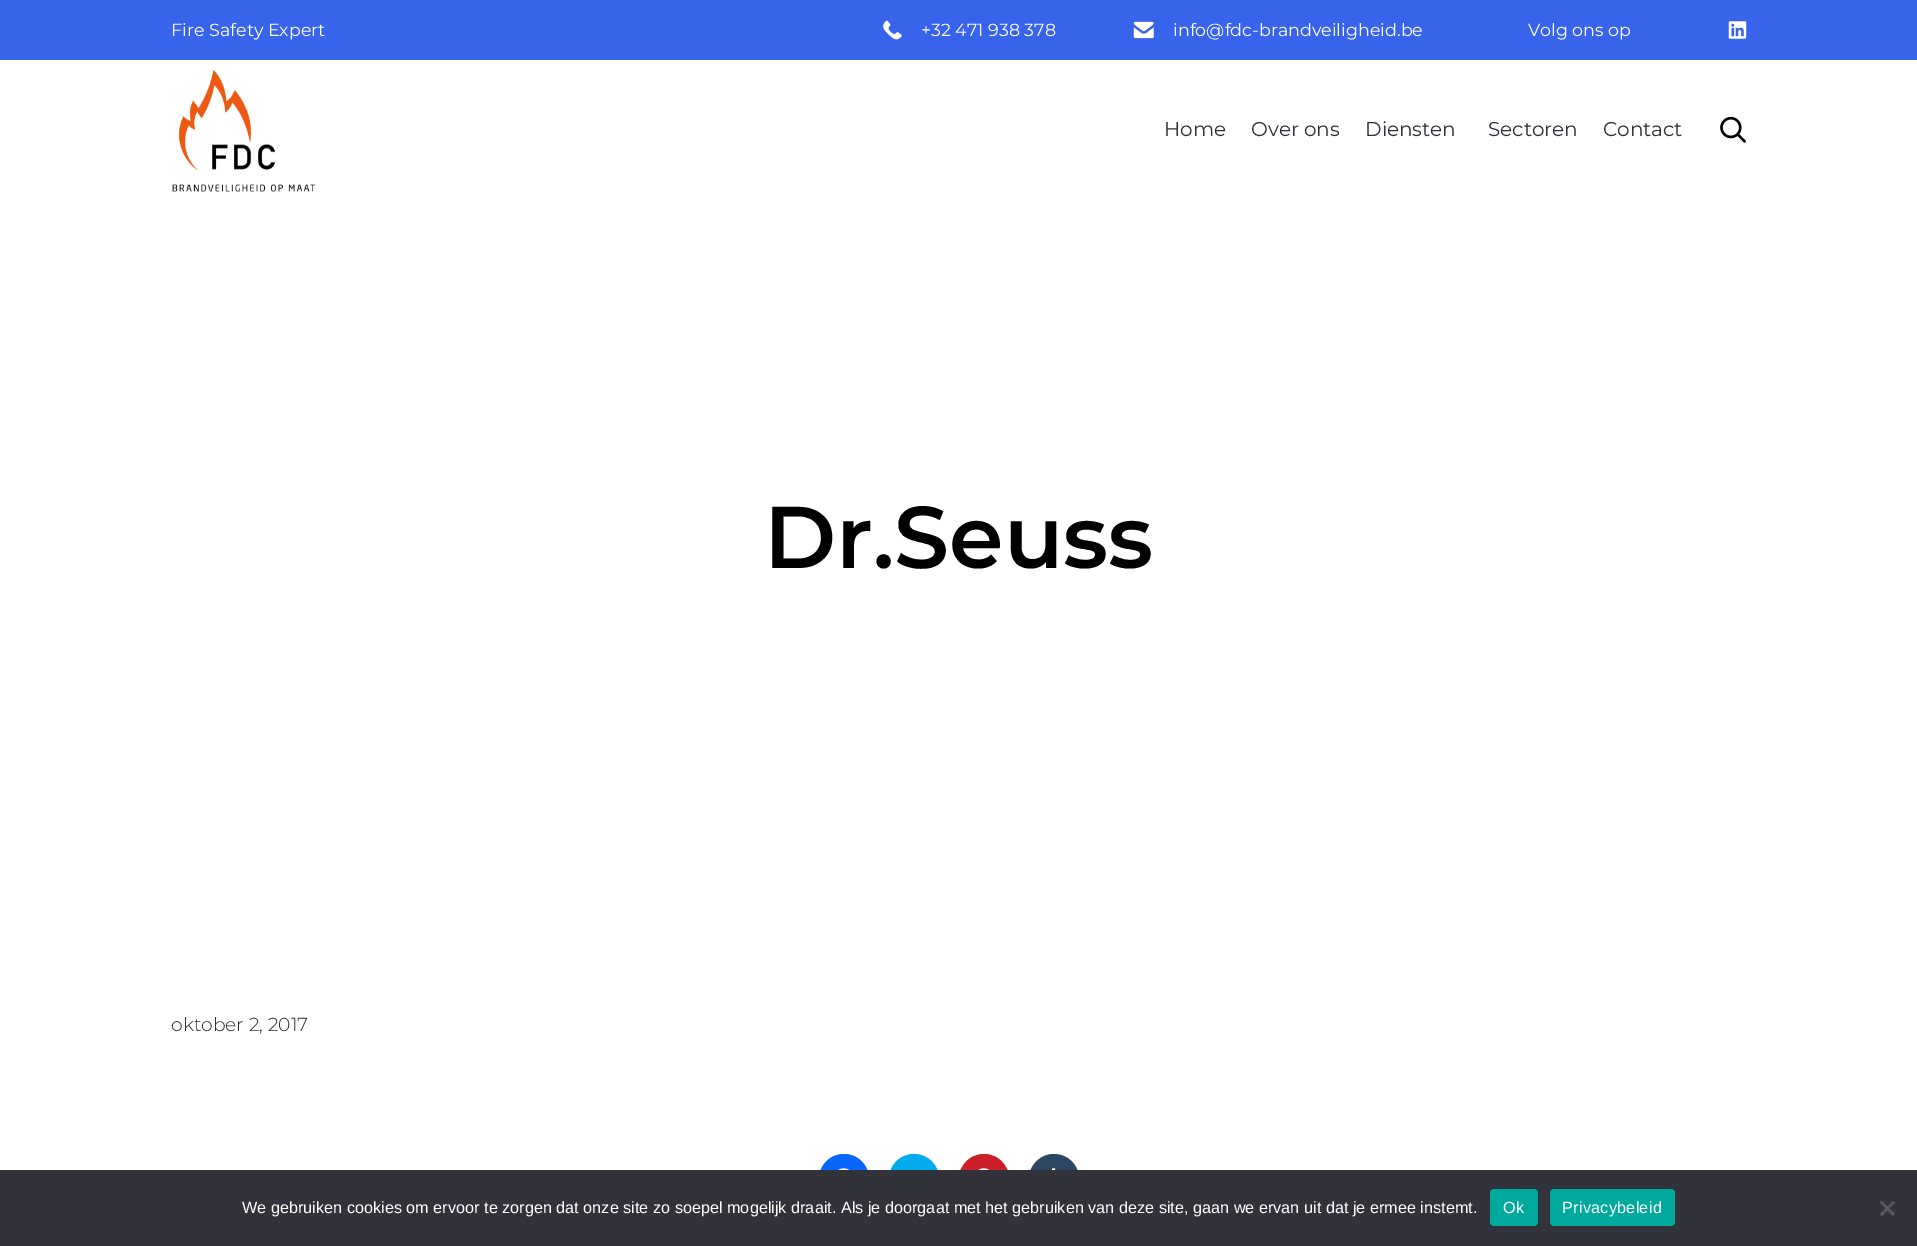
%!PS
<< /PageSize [1917 1246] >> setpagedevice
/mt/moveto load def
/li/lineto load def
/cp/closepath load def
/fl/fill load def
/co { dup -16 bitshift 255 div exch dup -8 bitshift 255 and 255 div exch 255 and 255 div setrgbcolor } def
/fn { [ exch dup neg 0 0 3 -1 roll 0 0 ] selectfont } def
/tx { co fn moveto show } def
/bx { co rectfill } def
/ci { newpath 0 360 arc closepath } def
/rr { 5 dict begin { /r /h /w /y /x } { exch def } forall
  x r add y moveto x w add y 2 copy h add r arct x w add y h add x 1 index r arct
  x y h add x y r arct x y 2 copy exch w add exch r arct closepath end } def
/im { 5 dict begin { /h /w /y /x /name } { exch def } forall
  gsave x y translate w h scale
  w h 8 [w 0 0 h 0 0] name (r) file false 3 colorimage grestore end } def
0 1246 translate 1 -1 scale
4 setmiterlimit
0 0 1917 1246 16#FFFFFF bx
0 0 1917 60 16#3764EB bx
(media/1.raw) 883 20 19 20 im
(media/2.raw) 1133 21 21 18 im
(media/3.raw) 1728 21 19 18 im
(media/4.raw) 172 70 144 122 im
(media/5.raw) 1720 116 26 27 im
16#0866FF co
844 1179 25 ci fl
(media/6.raw) 838 1168 12 2 im
16#00ACEE co
914 1179 25 ci fl
16#CA1F27 co
984 1179 25 ci fl
(media/7.raw) 978 1168 12 2 im
16#2C4762 co
1054 1179 25 ci fl
(media/8.raw) 1051 1168 5 2 im
0 1170 1917 76 16#32323A bx
16#00A99D co
1490 1189 48 37 4 rr fl
1550 1189 125 37 4 rr fl
16#59595D co
1893 1201 mt 1895 1202.5 li 1882 1216 li 1880 1214 li cp fl
1880 1202.5 mt 1882 1201 li 1895 1214 li 1893 1216 li cp fl
(Fire Safety Expert) 171 36 /Montserrat-Regular 17.5 16#FFFFFF tx
(+32 471 938 378) 921 36 /Montserrat-Regular 17.5 16#FFFFFF tx
(info@fdc-brandveiligheid.be) 1173 36 /Montserrat-Regular 17.5 16#FFFFFF tx
(Volg ons op) 1528 36 /Montserrat-Regular 17.5 16#FFFFFF tx
(Home) 1164 136 /Montserrat-Regular 20 16#2D3035 tx
(Over ons) 1251 136 /Montserrat-Regular 20 16#2D3035 tx
(Diensten) 1365 136 /Montserrat-Regular 20 16#2D3035 tx
(Sectoren) 1488 136 /Montserrat-Regular 20 16#2D3035 tx
(Contact) 1603 136 /Montserrat-Regular 20 16#2D3035 tx
(Dr.Seuss) 764 568 /Montserrat-SemiBold 87.5 16#000000 tx
(oktober 2, 2017) 171 1031 /Montserrat-Light 18.75 16#2C2C2C tx
(We gebruiken cookies om ervoor te zorgen dat onze site zo soepel mogelijk draait. Als je doorgaat met het gebruiken van deze site, gaan we ervan uit dat je ermee instemt.) 242 1213 /LiberationSans-Regular 16.25 16#FFFFFF tx
1503 1213 mt .25 0 (Ok) ashow
1562 1213 mt .25 0 (Privacybeleid) ashow
showpage
